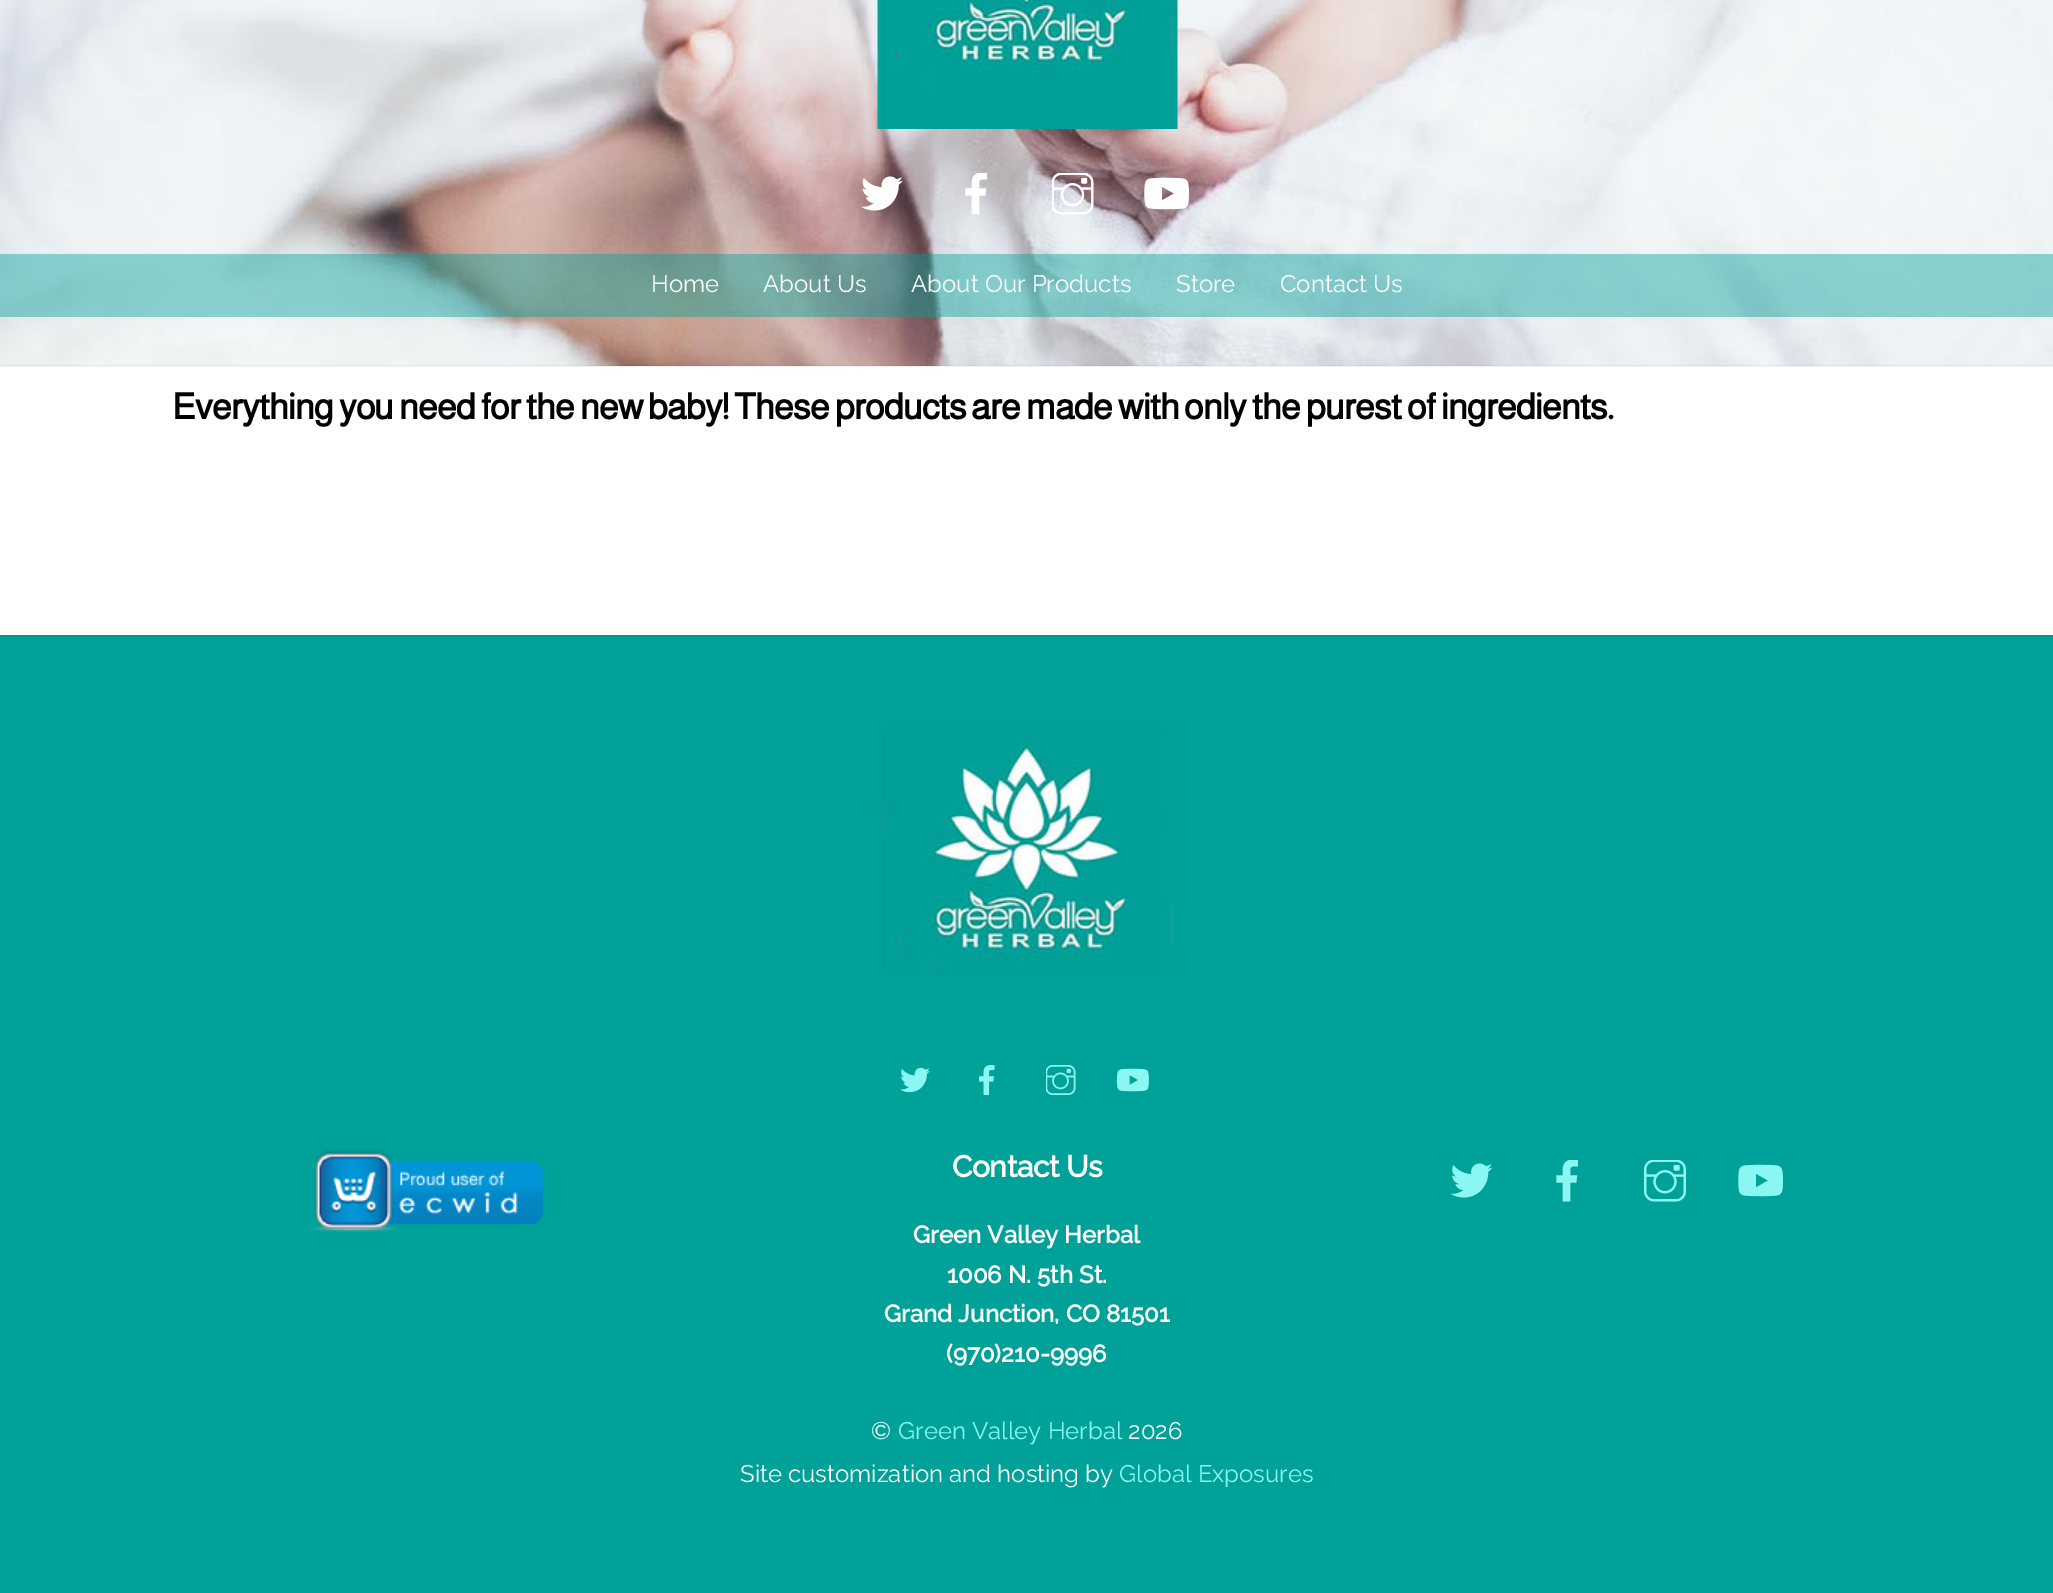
%!PS
<< /PageSize [2053 1593] /PageUsesTransparency true >> setpagedevice
/mt/moveto load def
/co { dup -16 bitshift 255 div exch dup -8 bitshift 255 and 255 div exch 255 and 255 div setrgbcolor } def
/fn { [ exch dup neg 0 0 3 -1 roll 0 0 ] selectfont } def
/tx { co fn moveto show } def
/bx { co rectfill } def
/al { dup .setfillconstantalpha .setstrokeconstantalpha } def
/im { 5 dict begin { /h /w /y /x /name } { exch def } forall
  gsave x y translate w h scale
  w h 8 [w 0 0 h 0 0] name (r) file false 3 colorimage grestore end } def
0 .pushpdf14devicefilter
0 1593 translate 1 -1 scale
4 setmiterlimit
0 0 2053 1593 16#FFFFFF bx
(media/1.raw) 0 0 2053 366 im
0.05 al
0 365 2053 2 16#000000 bx
1 al
(media/2.raw) 877 0 301 129 im
(media/3.raw) 861 176 42 35 im
(media/4.raw) 965 173 22 42 im
(media/5.raw) 1052 173 42 42 im
(media/6.raw) 1144 177 45 33 im
0.43 al
0 254 2053 63 16#00A199 bx
1 al
0 637 2053 956 16#00A199 bx
0 635 2053 2 16#009991 bx
(media/7.raw) 877 717 297 258 im
(media/8.raw) 900 1067 30 26 im
(media/9.raw) 979 1065 16 30 im
(media/10.raw) 1046 1065 30 30 im
(media/11.raw) 1116 1068 33 24 im
(media/12.raw) 308 1149 236 83 im
(media/13.raw) 1451 1163 42 35 im
(media/14.raw) 1556 1160 22 42 im
(media/15.raw) 1644 1160 42 42 im
(media/16.raw) 1738 1164 45 33 im
(Home) 651 292 /Raleway-Regular 24 16#FFFFFF tx
(About Us) 763 292 /Raleway-Regular 24 16#FFFFFF tx
(About Our Products) 911 292 /Raleway-Regular 24 16#FFFFFF tx
(Store) 1176 292 /Raleway-Regular 24 16#FFFFFF tx
(Contact Us) 1280 292 /Raleway-Regular 24 16#FFFFFF tx
/Almarai-Bold 36 fn
16#000000 co
172 419 mt -.72 0 (Everything you need for the new baby! These products are made with only the purest of ingredients.) ashow
/Raleway-Bold 30 fn
16#FFFFFF co
952 1177 mt -.5 0 (Contact Us) ashow
(Green Valley Herbal) 913 1243 /Raleway-Bold 24 16#FFFFFF tx
(1006 N. 5th St.) 947 1283 /Raleway-Bold 24 16#FFFFFF tx
(Grand Junction, CO 81501) 884 1322 /Raleway-Bold 24 16#FFFFFF tx
(\(970\)210-9996) 946 1362 /Raleway-Bold 24 16#FFFFFF tx
(©) 871 1439 /Raleway-Regular 24 16#FFFFFF tx
(Green Valley Herbal) 898 1439 /Raleway-Regular 24 16#8BF7F2 tx
(2026) 1128 1439 /Raleway-Regular 24 16#FFFFFF tx
(Site customization and hosting by) 740 1482 /Raleway-Regular 24 16#FFFFFF tx
(Global Exposures) 1119 1482 /Raleway-Regular 24 16#8BF7F2 tx
.poppdf14devicefilter showpage
